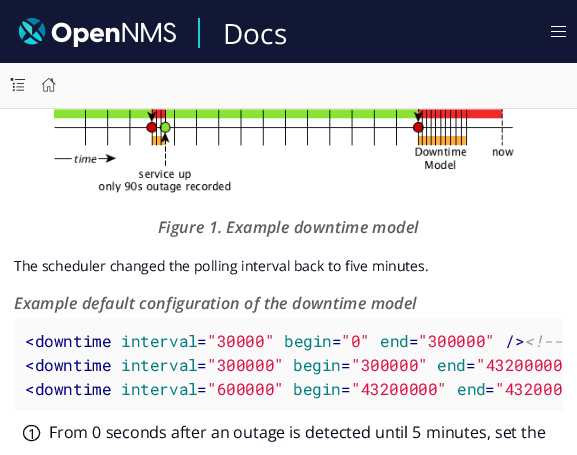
%!PS
<< /PageSize [577 455] >> setpagedevice
/mt/moveto load def
/st/stroke load def
/co { dup -16 bitshift 255 div exch dup -8 bitshift 255 and 255 div exch 255 and 255 div setrgbcolor } def
/fn { [ exch dup neg 0 0 3 -1 roll 0 0 ] selectfont } def
/tx { co fn moveto show } def
/bx { co rectfill } def
/rr { 5 dict begin { /r /h /w /y /x } { exch def } forall
  x r add y moveto x w add y 2 copy h add r arct x w add y h add x 1 index r arct
  x y h add x y r arct x y 2 copy exch w add exch r arct closepath end } def
/im { 5 dict begin { /h /w /y /x /name } { exch def } forall
  gsave x y translate w h scale
  w h 8 [w 0 0 h 0 0] name (r) file false 3 colorimage grestore end } def
0 455 translate 1 -1 scale
4 setmiterlimit
0 0 577 455 16#FFFFFF bx
0 0 577 63 16#131736 bx
(media/1.raw) 18 18 158 29 im
198 18 2 30 16#14D1DF bx
551 26 15 1 16#FFFFFF bx
551 31 15 1 16#FFFFFF bx
551 36 15 1 16#FFFFFF bx
0 108 577 1 16#E1E1E1 bx
0 63 577 45 16#FAFAFA bx
(media/2.raw) 10 78 15 14 im
(media/3.raw) 41 78 15 14 im
(media/4.raw) 54 109 493 84 im
14 318 549 93 16#FAFAFA bx
16#0A0C1B co
23.5 425.5 16 15 7.5 rr st
(Docs) 223 44 /OpenSans-Regular 28 16#FFFFFF tx
/OpenSans-SemiBoldItalic 16 fn
16#5D5D5D co
158 233 mt .15 0 (Figure 1. Example downtime model) ashow
(The scheduler changed the polling interval back to five minutes.) 14 271 /OpenSans-Regular 14 16#0A0C1B tx
/OpenSans-SemiBoldItalic 16 fn
16#5D5D5D co
14 309 mt .15 0 (Example default configuration of the downtime model) ashow
(<downtime) 25 347 /RobotoMono-Regular 16 16#000080 tx
(interval) 121 347 /RobotoMono-Regular 16 16#008080 tx
(=) 197 347 /RobotoMono-Regular 16 16#000080 tx
("30000") 207 347 /RobotoMono-Regular 16 16#DD1144 tx
(begin) 284 347 /RobotoMono-Regular 16 16#008080 tx
(=) 332 347 /RobotoMono-Regular 16 16#000080 tx
("0") 341 347 /RobotoMono-Regular 16 16#DD1144 tx
(end) 380 347 /RobotoMono-Regular 16 16#008080 tx
(=) 409 347 /RobotoMono-Regular 16 16#000080 tx
("300000") 418 347 /RobotoMono-Regular 16 16#DD1144 tx
(/>) 505 347 /RobotoMono-Regular 16 16#000080 tx
(<!--) 524 347 /RobotoMono-Italic 16 16#999988 tx
(<downtime) 25 371 /RobotoMono-Regular 16 16#000080 tx
(interval) 121 371 /RobotoMono-Regular 16 16#008080 tx
(=) 197 371 /RobotoMono-Regular 16 16#000080 tx
("300000") 207 371 /RobotoMono-Regular 16 16#DD1144 tx
(begin) 293 371 /RobotoMono-Regular 16 16#008080 tx
(=) 341 371 /RobotoMono-Regular 16 16#000080 tx
("300000") 351 371 /RobotoMono-Regular 16 16#DD1144 tx
(end) 437 371 /RobotoMono-Regular 16 16#008080 tx
(=) 466 371 /RobotoMono-Regular 16 16#000080 tx
("43200000) 476 371 /RobotoMono-Regular 16 16#DD1144 tx
(<downtime) 25 395 /RobotoMono-Regular 16 16#000080 tx
(interval) 121 395 /RobotoMono-Regular 16 16#008080 tx
(=) 197 395 /RobotoMono-Regular 16 16#000080 tx
("600000") 207 395 /RobotoMono-Regular 16 16#DD1144 tx
(begin) 293 395 /RobotoMono-Regular 16 16#008080 tx
(=) 341 395 /RobotoMono-Regular 16 16#000080 tx
("43200000") 351 395 /RobotoMono-Regular 16 16#DD1144 tx
(end) 457 395 /RobotoMono-Regular 16 16#008080 tx
(=) 485 395 /RobotoMono-Regular 16 16#000080 tx
("432000) 495 395 /RobotoMono-Regular 16 16#DD1144 tx
/OpenSans-Regular 14 fn
16#0A0C1B co
28 439 mt -2 0 (1) ashow
(From 0 seconds after an outage is detected until 5 minutes, set the) 49 438 /OpenSans-Regular 16 16#0A0C1B tx
showpage
